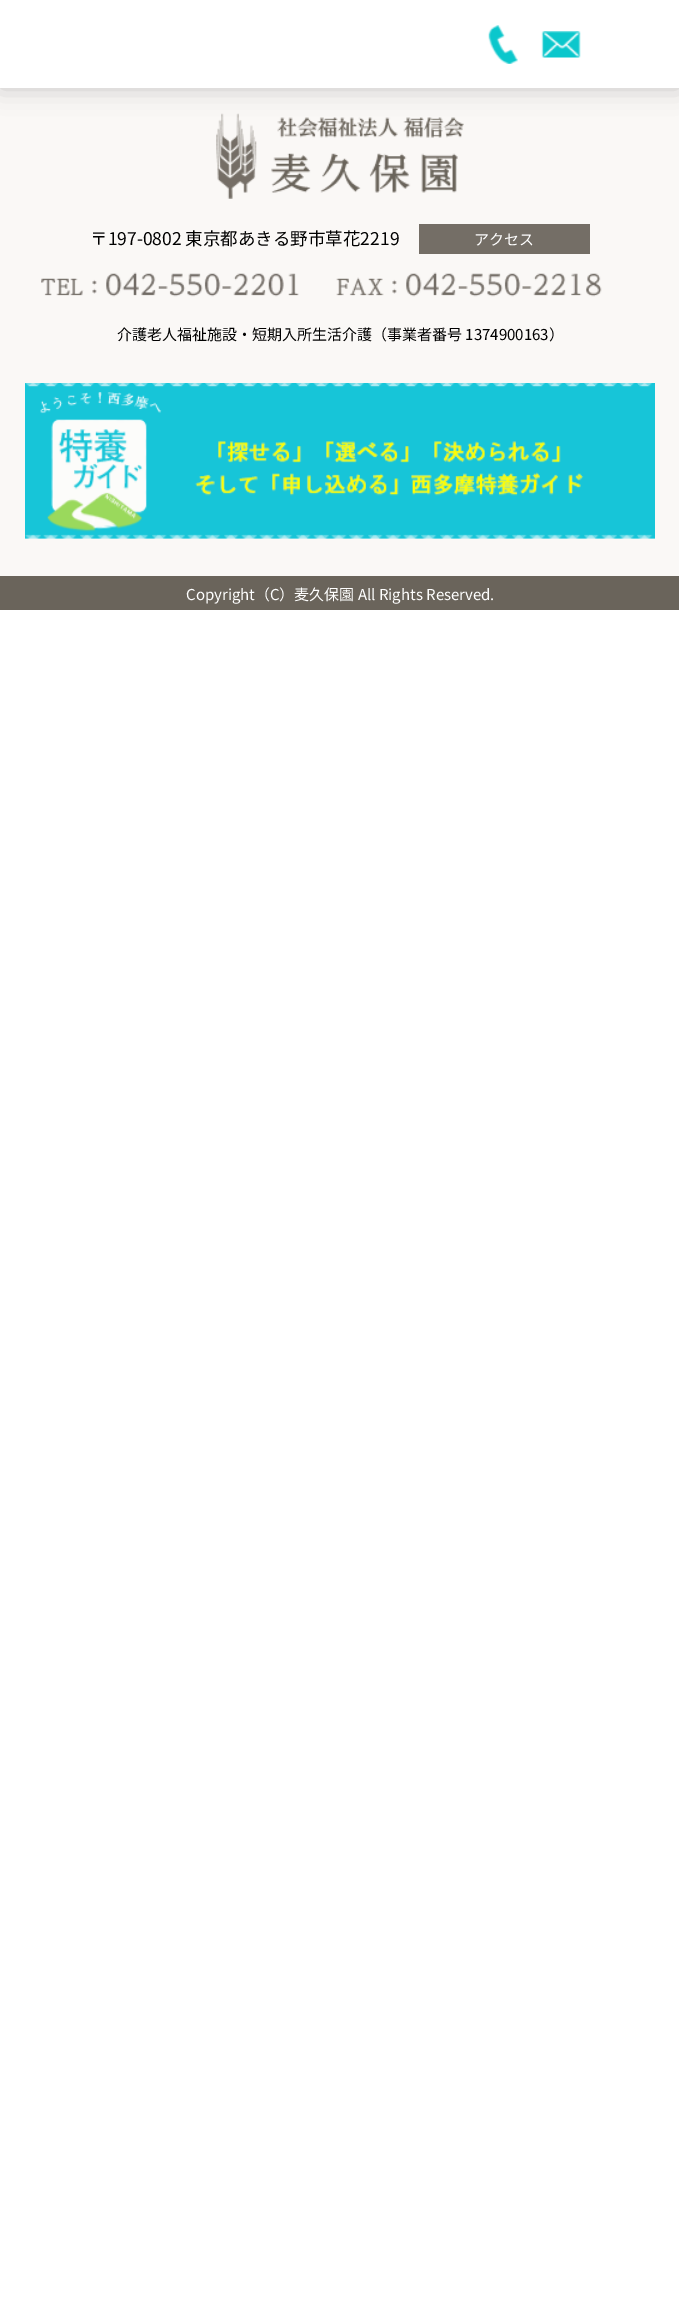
%!PS
<< /PageSize [679 2311] /PageUsesTransparency true >> setpagedevice
/co { dup -16 bitshift 255 div exch dup -8 bitshift 255 and 255 div exch 255 and 255 div setrgbcolor } def
/fn { [ exch dup neg 0 0 3 -1 roll 0 0 ] selectfont } def
/tx { co fn moveto show } def
/bx { co rectfill } def
/al { dup .setfillconstantalpha .setstrokeconstantalpha } def
/rr { 5 dict begin { /r /h /w /y /x } { exch def } forall
  x r add y moveto x w add y 2 copy h add r arct x w add y h add x 1 index r arct
  x y h add x y r arct x y 2 copy exch w add exch r arct closepath end } def
/sh { 12 dict begin { /a /b /q /h /w /y /x } { exch def } forall gsave /was 0 def
  9 -2 -9 { dup b mul 4 div /e exch def 1 sub .425 mul 2.718 exch exp 1 add a .99 .min exch div /now exch def
    1 1 now sub 1 was sub div sub al /was now def
    w h .min e 2 mul add 0 gt { x e sub y e sub w e 2 mul add h e 2 mul add
      q e add b .6 mul add w h .min 2 div e add .min 0 .max rr fill } if } for grestore end } def
/im { 5 dict begin { /h /w /y /x /name } { exch def } forall
  gsave x y translate w h scale
  w h 8 [w 0 0 h 0 0] name (r) file false 3 colorimage grestore end } def
0 .pushpdf14devicefilter
0 2311 translate 1 -1 scale
4 setmiterlimit
0 0 679 2311 16#FFFFFF bx
0 95 679 481 16#FAF8F6 bx
(media/3.raw) 0 88 679 7 im
(media/4.raw) 216 113 248 86 im
16#000000 co
0 0 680 88 0 12.5 .2 sh
0 0 679 88 16#FFFFFF bx
(media/1.raw) 488 25 30 39 im
(media/2.raw) 541 31 40 27 im
419 224 171 30 16#746E66 bx
(media/5.raw) 41 272 258 25 im
(media/6.raw) 336 272 266 25 im
(media/7.raw) 25 383 630 156 im
0 576 679 34 16#6A645B bx
(〒197-0802 東京都あきる野市草花2219) 90 245 /NotoSansCJKJP-Regular 17.5 16#000000 tx
(アクセス) 474 245 /NotoSansCJKJP-Regular 15 16#FFFFFF tx
(介護老人福祉施設・短期入所生活介護（事業者番号 1374900163）) 117 340 /NotoSansCJKJP-Regular 15 16#000000 tx
(Copyright（C）麦久保園 All Rights Reserved.) 186 600 /NotoSansCJKJP-Regular 15 16#FFFFFF tx
.poppdf14devicefilter showpage
